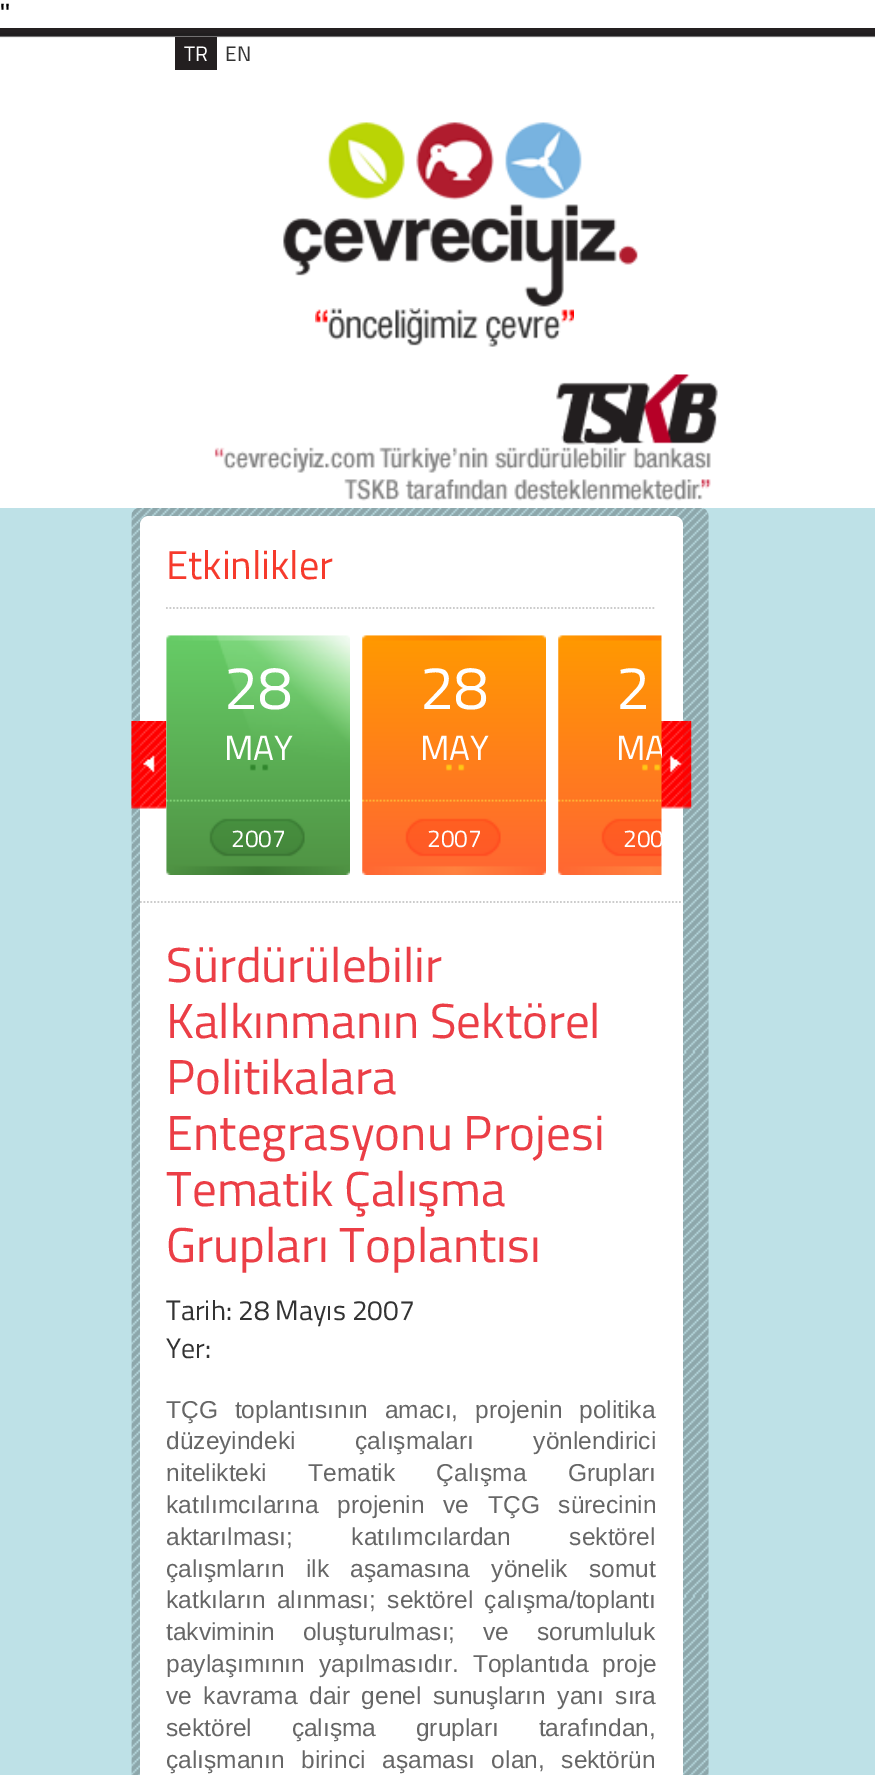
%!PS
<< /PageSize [875 1775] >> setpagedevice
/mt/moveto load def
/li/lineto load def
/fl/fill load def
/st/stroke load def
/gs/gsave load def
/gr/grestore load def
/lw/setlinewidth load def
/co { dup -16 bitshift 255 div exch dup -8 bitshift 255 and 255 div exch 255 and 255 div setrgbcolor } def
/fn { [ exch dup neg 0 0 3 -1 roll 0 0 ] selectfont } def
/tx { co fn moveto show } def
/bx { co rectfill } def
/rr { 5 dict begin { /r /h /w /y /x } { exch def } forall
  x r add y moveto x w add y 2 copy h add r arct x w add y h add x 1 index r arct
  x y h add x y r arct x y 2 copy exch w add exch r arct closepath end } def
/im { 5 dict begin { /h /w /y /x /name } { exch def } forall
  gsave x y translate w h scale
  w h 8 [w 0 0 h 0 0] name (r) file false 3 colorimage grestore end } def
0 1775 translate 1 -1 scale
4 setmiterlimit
0 0 875 1775 16#FFFFFF bx
(media/1.raw) 0 28 875 10 im
175 37 42 33 16#231F20 bx
(media/2.raw) 214 374 504 127 im
(media/3.raw) 283 122 355 185 im
(media/4.raw) 315 308 259 39 im
0 508 875 1267 16#BEE1E7 bx
(media/5.raw) 131 508 578 1267 im
16#FFFFFF co
140 516 543 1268 9 rr fl
16#CCCCCC co
1.8 lw
[1.75 1.75] 0 setdash
166 608 mt 656 608 li st
140 902 mt 682.5 902 li st
(media/6.raw) 131 721 36 88 im
(media/7.raw) 166 635 184 240 im
(media/8.raw) 362 635 184 240 im
(media/10.raw) 661 721 31 88 im
(media/9.raw) 558 635 104 240 im
(") 0 23 /LiberationSans-Regular 28 16#000000 tx
(TR) 184 61 /TitilliumWeb-Regular 21 16#FFFFFF tx
(EN) 225 61 /TitilliumWeb-Regular 21 16#333333 tx
(Etkinlikler) 166 579 /TitilliumWeb-Regular 40.25 16#F63A2C tx
(28) 224 709 /TitilliumWeb-Regular 61 16#FFFFFF tx
(MAY) 224 760 /TitilliumWeb-Regular 35 16#FFFFFF tx
(2007) 231 847 /TitilliumWeb-Regular 24.5 16#FFFFFF tx
(28) 420 709 /TitilliumWeb-Regular 61 16#FFFFFF tx
(MAY) 420 760 /TitilliumWeb-Regular 35 16#FFFFFF tx
(2007) 427 847 /TitilliumWeb-Regular 24.5 16#FFFFFF tx
(2) 616 709 /TitilliumWeb-Regular 61 16#FFFFFF tx
gs
166 635 496 240 rectclip
(MA) 616 760 /TitilliumWeb-Regular 35 16#FFFFFF tx
(200) 623 847 /TitilliumWeb-Regular 24.5 16#FFFFFF tx
gr
(Sürdürülebilir) 166 982 /TitilliumWeb-Regular 49 16#EB3E46 tx
(Kalkınmanın Sektörel) 166 1038 /TitilliumWeb-Regular 49 16#EB3E46 tx
(Politikalara) 166 1094 /TitilliumWeb-Regular 49 16#EB3E46 tx
(Entegrasyonu Projesi) 166 1150 /TitilliumWeb-Regular 49 16#EB3E46 tx
(Tematik Çalışma) 166 1206 /TitilliumWeb-Regular 49 16#EB3E46 tx
(Grupları Toplantısı) 166 1262 /TitilliumWeb-Regular 49 16#EB3E46 tx
(Tarih: 28 Mayıs 2007) 166 1320 /TitilliumWeb-Regular 28 16#333333 tx
(Yer:) 166 1358 /TitilliumWeb-Regular 28 16#333333 tx
/LiberationSans-Regular 24.5 fn
16#666666 co
166 1418 mt 10 0 32 (TÇG toplantısının amacı, projenin politika) widthshow
166 1449 mt 53 0 32 (düzeyindeki çalışmaları yönlendirici) widthshow
166 1481 mt 34.5 0 32 (nitelikteki Tematik Çalışma Grupları) widthshow
166 1513 mt 12 0 32 (katılımcılarına projenin ve TÇG sürecinin) widthshow
166 1545 mt 52 0 32 (aktarılması; katılımcılardan sektörel) widthshow
166 1577 mt 14.5 0 32 (çalışmların ilk aşamasına yönelik somut) widthshow
166 1608 mt 4.5 0 32 (katkıların alınması; sektörel çalışma/toplantı) widthshow
166 1640 mt 21 0 32 (takviminin oluşturulması; ve sorumluluk) widthshow
166 1672 mt 7 0 32 (paylaşımının yapılmasıdır. Toplantıda proje) widthshow
166 1704 mt 4.75 0 32 (ve kavrama dair genel sunuşların yanı sıra) widthshow
166 1736 mt 33 0 32 (sektörel çalışma grupları tarafından,) widthshow
166 1768 mt 10 0 32 (çalışmanın birinci aşaması olan, sektörün) widthshow
showpage
